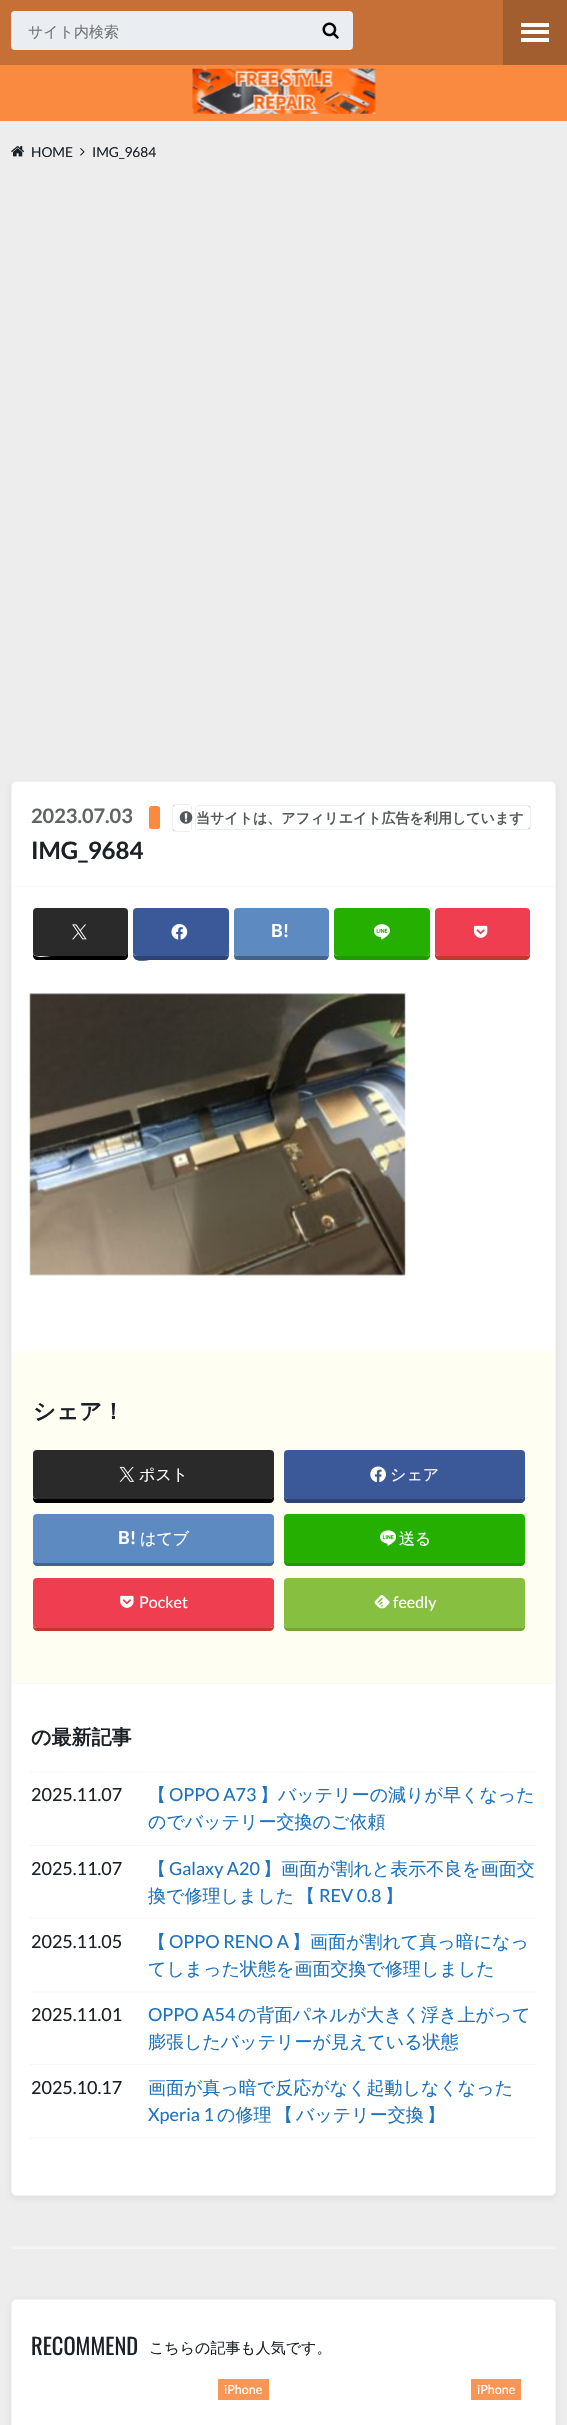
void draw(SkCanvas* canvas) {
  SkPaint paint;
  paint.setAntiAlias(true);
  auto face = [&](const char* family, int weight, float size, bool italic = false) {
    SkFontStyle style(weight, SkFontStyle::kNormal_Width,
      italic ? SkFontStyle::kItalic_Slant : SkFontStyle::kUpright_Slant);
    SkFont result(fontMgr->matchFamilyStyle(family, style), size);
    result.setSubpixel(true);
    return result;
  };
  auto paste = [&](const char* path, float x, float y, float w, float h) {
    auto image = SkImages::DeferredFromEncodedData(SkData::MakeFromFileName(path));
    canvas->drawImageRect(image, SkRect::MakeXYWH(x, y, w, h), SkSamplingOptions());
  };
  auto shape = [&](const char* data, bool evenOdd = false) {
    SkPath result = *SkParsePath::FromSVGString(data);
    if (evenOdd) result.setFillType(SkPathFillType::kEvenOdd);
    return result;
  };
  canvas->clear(0xffededed);
  {
    const struct { float x, y, w, h; SkColor color; } items[] = {
      {0, 0, 503, 65, 0xffc67037},
      {503, 0, 64, 65, 0xffa35e30},
      {521, 23, 28, 4, 0xffffffff},
      {521, 30, 28, 4, 0xffffffff},
      {521, 38, 28, 4, 0xffffffff},
      {0, 65, 567, 56, 0xfff98a40},
    };
    for (auto [x, y, w, h, color] : items) {
      paint.setColor(color);
      canvas->drawRect(SkRect::MakeXYWH(x, y, w, h), paint);
    }
  }
  paint.setColor(0xffeaedf2);
  canvas->drawRoundRect(SkRect::MakeXYWH(11, 11, 342, 39), 4, 4, paint);
  paste("img/1.png", 322, 22, 17, 17);
  paste("img/2.png", 192, 68, 184, 46);
  paste("img/3.png", 11, 146, 14, 11);
  paste("img/4.png", 80, 148, 5, 8);
  paint.setColor(0x268a8a8a);
  paint.setMaskFilter(SkMaskFilter::MakeBlur(kNormal_SkBlurStyle, 3));
  canvas->drawRoundRect(SkRect::MakeXYWH(11, 784, 545, 1415), 5, 5, paint);
  paint.setMaskFilter(nullptr);
  paint.setColor(0xffffffff);
  canvas->drawRoundRect(SkRect::MakeXYWH(11.5f, 781.5f, 544, 1414), 4.5f, 4.5f, paint);
  paint.setStroke(true);
  paint.setStrokeWidth(1);
  paint.setColor(0xfff3f3f3);
  canvas->drawRoundRect(SkRect::MakeXYWH(11.5f, 781.5f, 544, 1414), 4.5f, 4.5f, paint);
  paint.setStroke(false);
  paint.setColor(0xfff8f9fa);
  canvas->drawRect(SkRect::MakeXYWH(13, 886, 542, 1), paint);
  paint.setColor(0xfff98a40);
  canvas->drawRoundRect(SkRect::MakeXYWH(149, 806, 11, 23), 2.5f, 2.5f, paint);
  canvas->save();
  canvas->clipPath(shape("M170 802H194V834H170ZM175.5 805H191V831H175.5C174 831 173 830 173 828.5V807.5C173 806 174 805 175.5 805Z", true), true);
  paint.setColor(0xff55595c);
  paint.setMaskFilter(SkMaskFilter::MakeBlur(kNormal_SkBlurStyle, 0.5f));
  canvas->drawRoundRect(SkRect::MakeXYWH(173, 805, 18, 26), 2.5f, 2.5f, paint);
  paint.setMaskFilter(nullptr);
  canvas->restore();
  canvas->save();
  canvas->clipPath(shape("M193 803H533V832H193ZM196 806H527.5C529 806 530 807 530 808.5V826.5C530 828 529 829 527.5 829H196Z", true), true);
  paint.setMaskFilter(SkMaskFilter::MakeBlur(kNormal_SkBlurStyle, 0.5f));
  canvas->drawRoundRect(SkRect::MakeXYWH(196, 806, 334, 23), 2.5f, 2.5f, paint);
  paint.setMaskFilter(nullptr);
  canvas->restore();
  paste("img/5.png", 179, 811, 14, 13);
  paint.setColor(0xff000000);
  canvas->drawPath(shape("M33 954V956C33 958 35 960 37 960H124C126 960 128 958 128 956V915V913L127 953L126 955L125 956H51C49 956 36 959 33 954Z"), paint);
  paint.setColor(0xff2a2a2a);
  canvas->drawRoundRect(SkRect::MakeXYWH(33, 908, 95, 48), 4, 4, paint);
  paste("img/6.png", 72, 924, 15, 16);
  paint.setColor(0xff2c4373);
  canvas->drawPath(shape("M133 954C133 964 145 960 152 960H225C230 960 229 952 229 949V914V952C229 955 227 956 225 956H136C135 956 134 955 133 954Z"), paint);
  paint.setColor(0xff3b5998);
  canvas->drawRoundRect(SkRect::MakeXYWH(133, 908, 96, 48), 4, 4, paint);
  paste("img/7.png", 171, 924, 17, 16);
  paint.setColor(0xff43638b);
  canvas->drawPath(shape("M234 954C234 957 234 960 238 960H325C330 960 329 952 329 949V914V952C329 955 327 956 325 956H238C236 956 235 955 234 954Z"), paint);
  paint.setColor(0xff5d8ac1);
  canvas->drawRoundRect(SkRect::MakeXYWH(234, 908, 95, 48), 4, 4, paint);
  paint.setColor(0xff219900);
  canvas->drawPath(shape("M334 954V956C334 958 336 960 338 960H426C428 960 430 958 430 956V952C430 955 428 956 426 956H338C336 956 335 955 334 954Z"), paint);
  paint.setColor(0xff25af00);
  canvas->drawRoundRect(SkRect::MakeXYWH(334, 908, 96, 48), 4, 4, paint);
  paste("img/8.png", 374, 924, 16, 16);
  paint.setColor(0xffc0392b);
  canvas->drawPath(shape("M435 952V956C435 958 437 960 439 960H526C528 960 530 958 530 956V952C530 955 528 956 526 956H439C437 956 435 955 435 952Z"), paint);
  paint.setColor(0xfff03e51);
  canvas->drawRoundRect(SkRect::MakeXYWH(435, 908, 95, 48), 4, 4, paint);
  paste("img/9.png", 473, 925, 15, 13);
  paste("img/10.png", 29, 993, 377, 283);
  paint.setColor(0xfffffef2);
  canvas->drawRect(SkRect::MakeXYWH(13, 1351, 542, 332), paint);
  paint.setColor(0xff000000);
  canvas->drawPath(shape("M33 1497V1499C33 1501 35 1503 37 1503H270C272 1503 274 1501 274 1499V1457V1495C274 1497 272 1499 270 1499H36C35 1499 34 1498 33 1497Z"), paint);
  paint.setColor(0xff2a2a2a);
  canvas->drawRoundRect(SkRect::MakeXYWH(33, 1450, 241, 49), 4, 4, paint);
  paste("img/11.png", 119, 1466, 15, 16);
  paint.setColor(0xff2c4373);
  canvas->drawPath(shape("M284 1496V1499C284 1501 286 1503 288 1503H521C523 1503 525 1501 525 1499V1495C525 1497 523 1499 521 1499H288C286 1499 285 1498 284 1496Z"), paint);
  paint.setColor(0xff3b5998);
  canvas->drawRoundRect(SkRect::MakeXYWH(284, 1450, 241, 49), 4, 4, paint);
  paste("img/12.png", 370, 1466, 16, 17);
  paint.setColor(0xff43638b);
  canvas->drawPath(shape("M33 1561V1562C33 1564 35 1566 37 1566H270C272 1566 274 1564 274 1562V1521V1559C274 1561 272 1562 270 1562H36C35 1562 34 1562 33 1561Z"), paint);
  paint.setColor(0xff5d8ac1);
  canvas->drawRoundRect(SkRect::MakeXYWH(33, 1514, 241, 49), 4, 4, paint);
  paint.setColor(0xff219900);
  canvas->drawPath(shape("M284 1560V1562C284 1564 286 1566 288 1566H521C523 1566 525 1564 525 1562V1559C525 1561 523 1562 521 1562H288C286 1562 285 1562 284 1560Z"), paint);
  paint.setColor(0xff25af00);
  canvas->drawRoundRect(SkRect::MakeXYWH(284, 1514, 241, 49), 4, 4, paint);
  paste("img/13.png", 380, 1530, 16, 16);
  paint.setColor(0xffc0392b);
  canvas->drawPath(shape("M33 1626V1627C33 1629 35 1631 37 1631H270C272 1631 274 1629 274 1627V1584V1624C274 1626 272 1628 270 1628H36C35 1628 34 1627 33 1626Z"), paint);
  paint.setColor(0xfff03e51);
  canvas->drawRoundRect(SkRect::MakeXYWH(33, 1578, 241, 50), 4, 4, paint);
  paste("img/14.png", 120, 1595, 14, 13);
  paint.setColor(0xff74a436);
  canvas->drawPath(shape("M284 1625V1627C284 1629 286 1631 288 1631H521C523 1631 525 1629 525 1627V1624C525 1626 523 1628 521 1628H288C286 1628 285 1627 284 1625Z"), paint);
  paint.setColor(0xff87c040);
  canvas->drawRoundRect(SkRect::MakeXYWH(284, 1578, 241, 50), 4, 4, paint);
  paste("img/15.png", 374, 1595, 16, 14);
  paint.setColor(0xfff8f9fa);
  canvas->drawRect(SkRect::MakeXYWH(13, 1683, 542, 1), paint);
  paint.setStroke(true);
  paint.setStrokeWidth(1.2f);
  paint.setColor(0xffeeeeee);
  paint.setPathEffect(SkDashPathEffect::Make({{1.25f, 1.25f}}, 0));
  canvas->drawPath(shape("M30 1772H537.5"), paint);
  paint.setPathEffect(nullptr);
  paint.setPathEffect(SkDashPathEffect::Make({{1.25f, 1.25f}}, 0));
  canvas->drawPath(shape("M30 1845.5H537.5"), paint);
  paint.setPathEffect(nullptr);
  paint.setPathEffect(SkDashPathEffect::Make({{1.25f, 1.25f}}, 0));
  canvas->drawPath(shape("M30 1918H537.5"), paint);
  paint.setPathEffect(nullptr);
  paint.setPathEffect(SkDashPathEffect::Make({{1.25f, 1.25f}}, 0));
  canvas->drawPath(shape("M30 1992H537.5"), paint);
  paint.setPathEffect(nullptr);
  paint.setPathEffect(SkDashPathEffect::Make({{1.25f, 1.25f}}, 0));
  canvas->drawPath(shape("M30 2064.5H537.5"), paint);
  paint.setPathEffect(nullptr);
  paint.setPathEffect(SkDashPathEffect::Make({{1.25f, 1.25f}}, 0));
  canvas->drawPath(shape("M30 2138H537.5"), paint);
  paint.setPathEffect(nullptr);
  paint.setStroke(false);
  paint.setColor(0xfff3f3f3);
  canvas->drawRoundRect(SkRect::MakeXYWH(11, 2246, 545, 3), 1.5f, 1.5f, paint);
  paint.setColor(0x268a8a8a);
  paint.setMaskFilter(SkMaskFilter::MakeBlur(kNormal_SkBlurStyle, 3));
  canvas->drawRoundRect(SkRect::MakeXYWH(11, 2301, 545, 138), 5, 5, paint);
  paint.setMaskFilter(nullptr);
  paint.setColor(0xffffffff);
  canvas->drawRoundRect(SkRect::MakeXYWH(11.5f, 2299.5f, 544, 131), 4.5f, 4.5f, paint);
  paint.setStroke(true);
  paint.setStrokeWidth(1);
  paint.setColor(0xfff3f3f3);
  canvas->drawRoundRect(SkRect::MakeXYWH(11.5f, 2299.5f, 544, 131), 4.5f, 4.5f, paint);
  paint.setStroke(false);
  paint.setColor(0xfffa9653);
  canvas->drawRect(SkRect::MakeXYWH(218, 2379, 51, 21), paint);
  canvas->drawRect(SkRect::MakeXYWH(471, 2379, 50, 21), paint);
  auto f0 = face("WenQuanYi Zen Hei", 500, 15);
  paint.setColor(0xff757575);
  canvas->drawString("サイト内検索", 28, 37, f0, paint);
  auto f1 = face("Lato", 400, 13.75f);
  paint.setColor(0xff1c2126);
  canvas->drawString("HOME", 31, 157, f1, paint);
  canvas->drawString("IMG_9684", 92, 157, f1, paint);
  auto f2 = face("Lato", 700, 20);
  paint.setColor(0xff606467);
  canvas->drawString("2023.07.03", 31, 823, f2, paint);
  auto f3 = face("WenQuanYi Zen Hei", 700, 14);
  paint.setColor(0xff55595c);
  canvas->drawString("当サイトは、アフィリエイト広告を利用しています", 196, 823, f3, paint);
  auto f4 = face("Lato", 700, 24);
  paint.setColor(0xff1c2126);
  canvas->drawString("IMG_9684", 31, 859, f4, paint);
  auto f5 = face("Lato", 700, 18);
  paint.setColor(0xffffffff);
  canvas->drawString("B!", 271, 937, f5, paint);
  auto f6 = face("WenQuanYi Zen Hei", 700, 22.5f);
  paint.setColor(0xff1c2126);
  canvas->drawString("シェア！", 33, 1419, f6, paint);
  auto f7 = face("WenQuanYi Zen Hei", 500, 16);
  paint.setColor(0xffffffff);
  canvas->drawString("ポスト", 139, 1480, f7, paint);
  canvas->drawString("シェア", 390, 1480, f7, paint);
  canvas->drawString("B!", 118, 1544, f5, paint);
  canvas->drawString("はてブ", 140, 1544, f7, paint);
  canvas->drawString("送る", 399, 1544, f7, paint);
  auto f8 = face("Lato", 400, 16);
  canvas->drawString("Pocket", 139, 1608, f8, paint);
  canvas->drawString("feedly", 393, 1608, f8, paint);
  auto f9 = face("WenQuanYi Zen Hei", 700, 20);
  paint.setColor(0xff1c2126);
  canvas->drawString("の最新記事", 31, 1744, f9, paint);
  auto f10 = face("Lato", 400, 18);
  canvas->drawString("2025.11.07", 31, 1801, f10, paint);
  auto f11 = face("WenQuanYi Zen Hei", 500, 18);
  paint.setColor(0xff1e73be);
  canvas->drawString("【", 148, 1801, f11, paint);
  canvas->drawString("OPPO A73", 169, 1801, f10, paint);
  canvas->drawString("】バッテリーの減りが早くなった", 260, 1801, f11, paint);
  canvas->drawString("のでバッテリー交換のご依頼", 148, 1828, f11, paint);
  paint.setColor(0xff1c2126);
  canvas->drawString("2025.11.07", 31, 1875, f10, paint);
  paint.setColor(0xff1e73be);
  canvas->drawString("【", 148, 1875, f11, paint);
  canvas->drawString("Galaxy A20", 169, 1875, f10, paint);
  {
    const struct { const char* s; float x, y; } items[] = {
      {"】画面が割れと表示不良を画面交", 263, 1875},
      {"換で修理しました", 148, 1902},
      {"【", 297, 1902},
    };
    for (auto [s, x, y] : items) {
      canvas->drawString(s, x, y, f11, paint);
    }
  }
  canvas->drawString("REV 0.8", 319, 1902, f10, paint);
  canvas->drawString("】", 385, 1902, f11, paint);
  paint.setColor(0xff1c2126);
  canvas->drawString("2025.11.05", 31, 1948, f10, paint);
  paint.setColor(0xff1e73be);
  canvas->drawString("【", 148, 1948, f11, paint);
  canvas->drawString("OPPO RENO A", 169, 1948, f10, paint);
  canvas->drawString("】画面が割れて真っ暗になっ", 292, 1948, f11, paint);
  canvas->drawString("てしまった状態を画面交換で修理しました", 148, 1975, f11, paint);
  paint.setColor(0xff1c2126);
  canvas->drawString("2025.11.01", 31, 2021, f10, paint);
  paint.setColor(0xff1e73be);
  canvas->drawString("OPPO A54", 148, 2021, f10, paint);
  canvas->drawString("の背面パネルが大きく浮き上がって", 238, 2021, f11, paint);
  canvas->drawString("膨張したバッテリーが見えている状態", 148, 2048, f11, paint);
  paint.setColor(0xff1c2126);
  canvas->drawString("2025.10.17", 31, 2094, f10, paint);
  paint.setColor(0xff1e73be);
  canvas->drawString("画面が真っ暗で反応がなく起動しなくなった", 148, 2094, f11, paint);
  canvas->drawString("Xperia 1", 148, 2121, f10, paint);
  {
    const struct { const char* s; float x, y; } items[] = {
      {"の修理", 217, 2121},
      {"【", 275, 2121},
      {"バッテリー交換", 296, 2121},
      {"】", 427, 2121},
    };
    for (auto [s, x, y] : items) {
      canvas->drawString(s, x, y, f11, paint);
    }
  }
  auto f12 = face("Oswald", 400, 22.5f);
  paint.setColor(0xff1c2126);
  canvas->drawString("RECOMMEND", 31, 2355, f12, paint);
  canvas->drawString("こちらの記事も人気です。", 149, 2353, f0, paint);
  auto f13 = face("Lato", 400, 12.5f);
  paint.setColor(0xffffffff);
  canvas->drawString("iPhone", 224, 2394, f13, paint);
  canvas->drawString("iPhone", 477, 2394, f13, paint);
}
